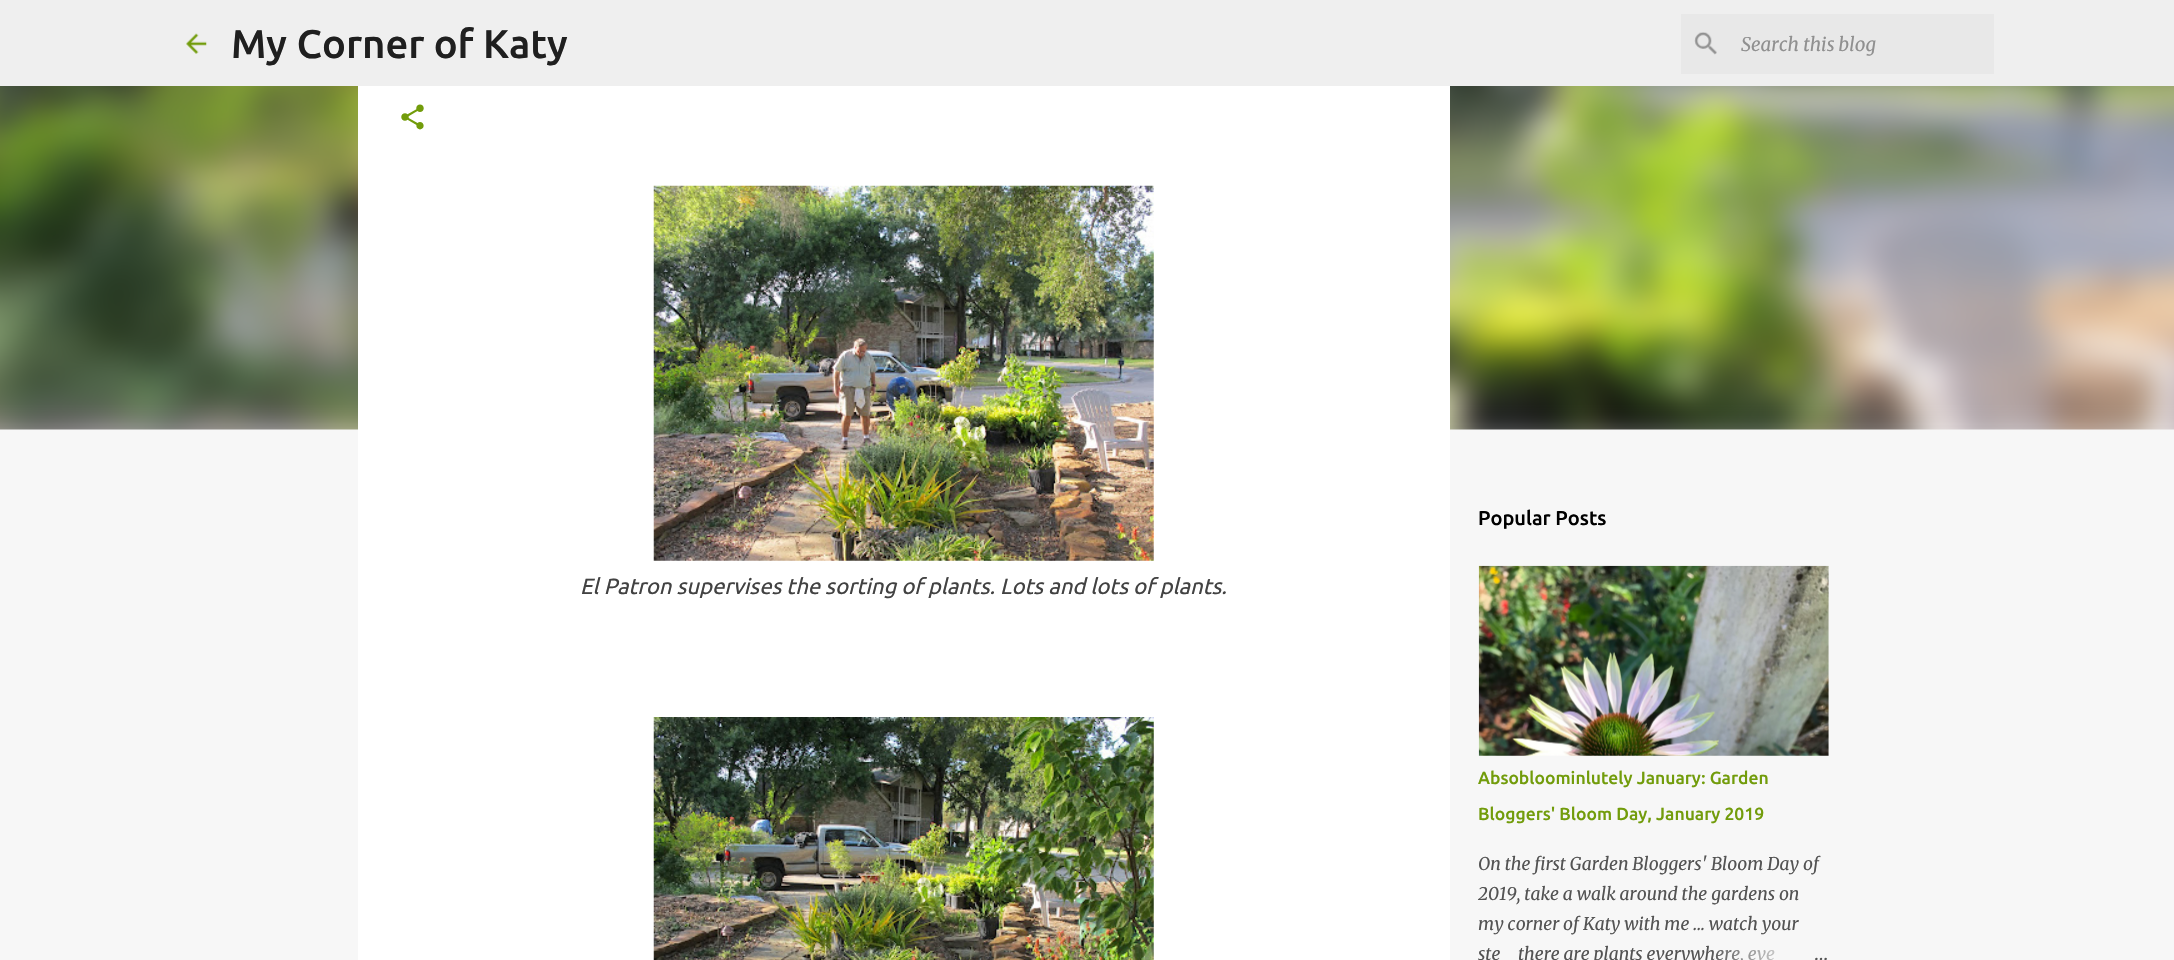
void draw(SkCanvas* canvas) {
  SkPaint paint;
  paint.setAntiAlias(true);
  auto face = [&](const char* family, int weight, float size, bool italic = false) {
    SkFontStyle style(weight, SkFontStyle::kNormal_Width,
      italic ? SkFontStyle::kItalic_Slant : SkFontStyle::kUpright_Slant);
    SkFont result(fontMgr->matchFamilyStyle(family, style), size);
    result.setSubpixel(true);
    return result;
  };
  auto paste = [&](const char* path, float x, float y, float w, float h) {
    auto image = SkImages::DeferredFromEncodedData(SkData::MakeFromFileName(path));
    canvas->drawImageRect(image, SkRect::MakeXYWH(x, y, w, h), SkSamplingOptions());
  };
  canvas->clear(0xfff7f7f7);
  paint.setColor(0xffefefef);
  canvas->drawRect(SkRect::MakeXYWH(0, 0, 2174, 86), paint);
  paste("img/1.png", 186, 33, 21, 21);
  paint.setColor(0xffe8e8e8);
  canvas->drawRect(SkRect::MakeXYWH(1681, 14, 313, 60), paint);
  paste("img/2.png", 1694, 32, 23, 23);
  paste("img/7.png", 0, 86, 2174, 344);
  paint.setColor(0xffffffff);
  canvas->drawRect(SkRect::MakeXYWH(358, 86, 1092, 874), paint);
  paste("img/3.png", 401, 104, 23, 26);
  paste("img/4.png", 653, 185, 501, 376);
  paste("img/5.png", 653, 717, 501, 243);
  paste("img/6.png", 1478, 565, 351, 191);
  auto f0 = face("Ubuntu", 500, 40);
  paint.setColor(0xff1f1f1f);
  canvas->drawString("My Corner of Katy", 231, 58, f0, paint);
  auto f1 = face("Merriweather", 400, 18.75f, true);
  paint.setColor(0xff909090);
  canvas->drawString("Search this blog", 1741, 51, f1, paint);
  auto f2 = face("Ubuntu", 400, 22, true);
  paint.setColor(0xff424242);
  canvas->drawString("El Patron supervises the sorting of plants. Lots and lots of plants.", 580, 594, f2, paint);
  auto f3 = face("Ubuntu", 500, 20);
  paint.setColor(0xff000000);
  canvas->drawString("Popular Posts", 1478, 525, f3, paint);
  auto f4 = face("Ubuntu", 500, 17.5f);
  paint.setColor(0xff729c0b);
  canvas->drawString("Absobloominlutely January: Garden", 1478, 784, f4, paint);
  canvas->drawString("Bloggers' Bloom Day, January 2019", 1478, 820, f4, paint);
  auto f5 = face("Merriweather", 400, 17.5f, true);
  paint.setColor(0xff535353);
  {
    const struct { const char* s; float x, y; } items[] = {
      {"On the first Garden Bloggers' Bloom Day of", 1478, 870},
      {"2019, take a walk around the gardens on", 1478, 900},
      {"my corner of Katy with me ... watch your", 1478, 930},
      {"ste", 1478, 960},
      {"there are plants everywhere, eve", 1518, 960},
    };
    for (auto [s, x, y] : items) {
      canvas->drawString(s, x, y, f5, paint);
    }
  }
  {
    const SkColor colors[] = {0xfff7f7f7, 0xfff7f7f7, 0x00f7f7f7};
    const float stops[] = {0, 0.2f, 1};
    const SkPoint ends[] = {{1829, 954}, {1709, 954}};
    paint.setShader(SkGradientShader::MakeLinear(ends, colors, stops, 3, SkTileMode::kClamp));
    paint.setAlpha(255);
  }
  canvas->drawRect(SkRect::MakeXYWH(1711, 950, 64, 10), paint);
  auto f6 = face("Merriweather", 300, 17.5f);
  paint.setShader(nullptr);
  paint.setColor(0xff535353);
  canvas->drawString("…", 1814, 960, f6, paint);
}
